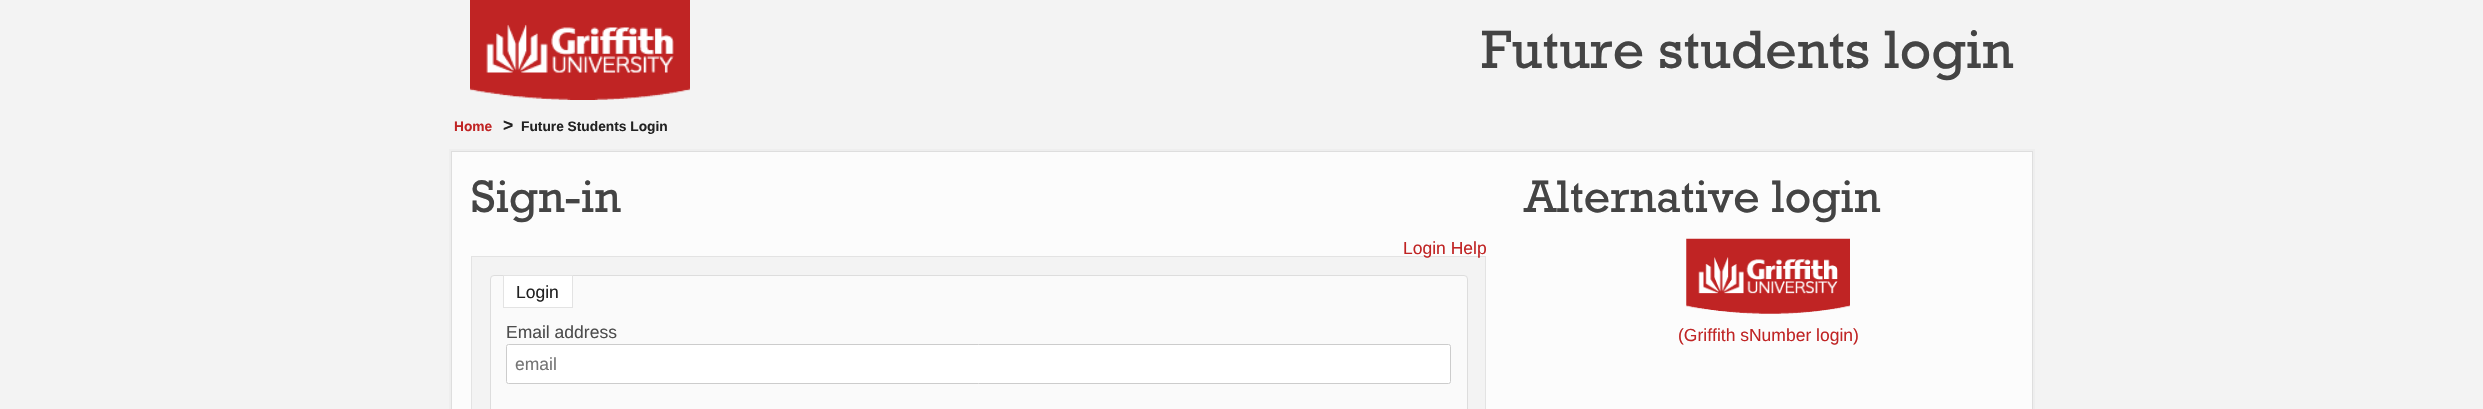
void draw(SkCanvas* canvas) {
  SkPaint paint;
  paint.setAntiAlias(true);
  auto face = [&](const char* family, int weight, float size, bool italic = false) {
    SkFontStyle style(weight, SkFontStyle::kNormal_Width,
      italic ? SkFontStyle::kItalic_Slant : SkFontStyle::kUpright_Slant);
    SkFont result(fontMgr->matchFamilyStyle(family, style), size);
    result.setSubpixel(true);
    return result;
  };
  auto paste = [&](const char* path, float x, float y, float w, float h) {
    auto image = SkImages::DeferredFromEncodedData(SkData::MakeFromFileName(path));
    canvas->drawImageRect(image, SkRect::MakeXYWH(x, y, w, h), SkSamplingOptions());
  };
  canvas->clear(0xfff3f3f3);
  paste("img/1.png", 470, 0, 220, 100);
  paint.setStroke(true);
  paint.setStrokeWidth(3);
  paint.setColor(0xffeeeeee);
  canvas->drawRect(SkRect::MakeXYWH(450.5f, 150.5f, 1583, 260), paint);
  paint.setStroke(false);
  paint.setColor(0xfffcfcfc);
  canvas->drawRect(SkRect::MakeXYWH(451.5f, 151.5f, 1581, 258), paint);
  paint.setStroke(true);
  paint.setStrokeWidth(1);
  paint.setColor(0xffdedede);
  canvas->drawRect(SkRect::MakeXYWH(451.5f, 151.5f, 1581, 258), paint);
  paint.setStroke(false);
  paint.setColor(0xfff3f3f3);
  canvas->drawRect(SkRect::MakeXYWH(471.5f, 256.5f, 1014, 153), paint);
  paint.setStroke(true);
  paint.setColor(0xffe3e3e3);
  canvas->drawRect(SkRect::MakeXYWH(471.5f, 256.5f, 1014, 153), paint);
  paint.setStroke(false);
  paint.setColor(0xfffafafa);
  canvas->drawRoundRect(SkRect::MakeXYWH(490.5f, 275.5f, 977, 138), 3.5f, 3.5f, paint);
  paint.setStroke(true);
  paint.setColor(0xffdddddd);
  canvas->drawRoundRect(SkRect::MakeXYWH(490.5f, 275.5f, 977, 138), 3.5f, 3.5f, paint);
  paint.setStroke(false);
  paint.setColor(0xffffffff);
  canvas->drawRect(SkRect::MakeXYWH(503.5f, 275.5f, 69, 32), paint);
  paint.setStroke(true);
  paint.setColor(0xffe3e3e3);
  canvas->drawRect(SkRect::MakeXYWH(503.5f, 275.5f, 69, 32), paint);
  paint.setStroke(false);
  paint.setColor(0xffffffff);
  canvas->drawRoundRect(SkRect::MakeXYWH(506.5f, 344.5f, 944, 39), 2, 2, paint);
  paint.setStroke(true);
  paint.setColor(0xffcccccc);
  canvas->drawRoundRect(SkRect::MakeXYWH(506.5f, 344.5f, 944, 39), 2, 2, paint);
  paste("img/2.png", 1686, 238, 164, 76);
  auto f0 = face("Rockwell", 400, 55);
  paint.setStroke(false);
  paint.setColor(0xff444444);
  canvas->drawString("Future students login", 1481, 68, f0, paint);
  auto f1 = face("Liberation Sans", 700, 13.75f);
  paint.setColor(0xffc02424);
  canvas->drawString("Home", 454, 131, f1, paint);
  auto f2 = face("Liberation Sans", 700, 17.5f);
  paint.setColor(0xff222222);
  canvas->drawString(">", 503, 131, f2, paint);
  canvas->drawString("Future Students Login", 521, 131, f1, paint);
  auto f3 = face("Rockwell", 400, 46.25f);
  paint.setColor(0xff444444);
  canvas->drawString("Sign-in", 471, 212, f3, paint);
  auto f4 = face("Liberation Sans", 400, 17.5f);
  paint.setColor(0xffc02424);
  canvas->drawString("Login Help", 1403, 254, f4, paint);
  paint.setColor(0xff222222);
  canvas->drawString("Login", 516, 298, f4, paint);
  paint.setColor(0xff4d4d4d);
  canvas->drawString("Email address", 506, 338, f4, paint);
  paint.setColor(0xff757575);
  canvas->drawString("email", 515, 370, f4, paint);
  paint.setColor(0xff444444);
  canvas->drawString("Alternative login", 1524, 212, f3, paint);
  paint.setColor(0xffc02424);
  canvas->drawString("(Griffith sNumber login)", 1678, 341, f4, paint);
}
